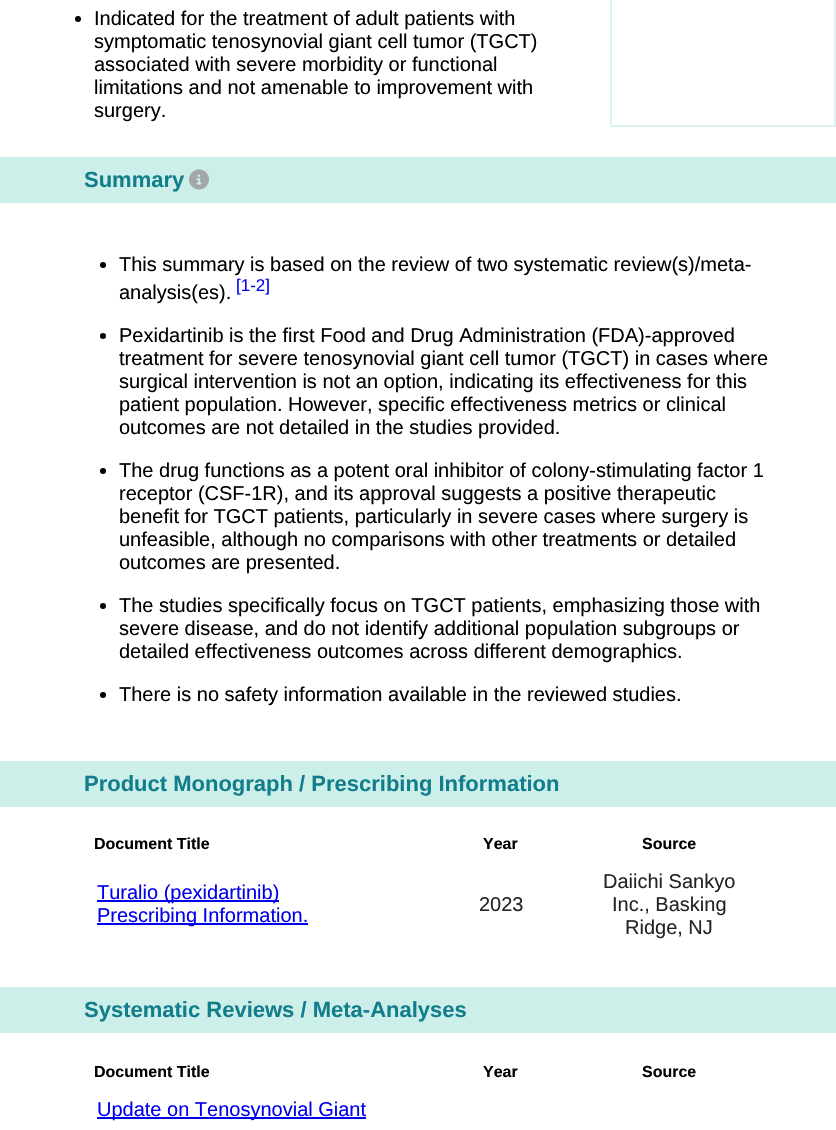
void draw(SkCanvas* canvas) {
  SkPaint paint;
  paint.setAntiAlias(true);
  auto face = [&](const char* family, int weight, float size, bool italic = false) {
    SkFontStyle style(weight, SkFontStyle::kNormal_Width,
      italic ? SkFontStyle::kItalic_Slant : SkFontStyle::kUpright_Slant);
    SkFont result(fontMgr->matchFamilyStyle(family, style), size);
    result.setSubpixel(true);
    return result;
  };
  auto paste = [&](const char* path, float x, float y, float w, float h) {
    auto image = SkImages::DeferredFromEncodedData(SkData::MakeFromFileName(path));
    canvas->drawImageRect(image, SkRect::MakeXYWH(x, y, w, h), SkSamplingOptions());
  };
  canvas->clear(0xffffffff);
  paint.setColor(0xff000000);
  canvas->drawCircle(78, 19, 3, paint);
  paint.setStroke(true);
  paint.setStrokeWidth(2);
  paint.setColor(0xffdbf4f0);
  canvas->drawRect(SkRect::MakeXYWH(611, -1, 224, 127), paint);
  paint.setStroke(false);
  paint.setColor(0xffcdefea);
  canvas->drawRect(SkRect::MakeXYWH(0, 157, 836, 46), paint);
  paste("img/1.png", 189, 169, 20, 21);
  paint.setColor(0xff000000);
  canvas->drawCircle(103, 265, 3, paint);
  canvas->drawCircle(103, 336, 3, paint);
  canvas->drawCircle(103, 471, 3, paint);
  canvas->drawCircle(103, 606, 3, paint);
  canvas->drawCircle(103, 695, 3, paint);
  {
    const struct { float x, y, w, h; SkColor color; } items[] = {
      {0, 761, 836, 46, 0xffcdefea},
      {97, 900, 182, 2, 0xff0000ee},
      {97, 923, 211, 2, 0xff0000ee},
      {0, 987, 836, 46, 0xffcdefea},
      {97, 1117, 269, 2, 0xff0000ee},
    };
    for (auto [x, y, w, h, color] : items) {
      paint.setColor(color);
      canvas->drawRect(SkRect::MakeXYWH(x, y, w, h), paint);
    }
  }
  auto f0 = face("Liberation Sans", 400, 20);
  paint.setColor(0xff000000);
  {
    const struct { const char* s; float x, y; } items[] = {
      {"Indicated for the treatment of adult patients with", 94, 25},
      {"symptomatic tenosynovial giant cell tumor (TGCT)", 94, 48},
      {"associated with severe morbidity or functional", 94, 71},
      {"limitations and not amenable to improvement with", 94, 94},
      {"surgery.", 94, 117},
    };
    for (auto [s, x, y] : items) {
      canvas->drawString(s, x, y, f0, paint);
    }
  }
  auto f1 = face("Liberation Sans", 700, 22);
  paint.setColor(0xff127e8c);
  canvas->drawString("Summary", 84, 187, f1, paint);
  paint.setColor(0xff000000);
  canvas->drawString("This summary is based on the review of two systematic review(s)/meta-", 119, 271, f0, paint);
  canvas->drawString("analysis(es).", 119, 299, f0, paint);
  auto f2 = face("Liberation Sans", 400, 17);
  paint.setColor(0xff0000ee);
  canvas->drawString("[1-2]", 236, 291, f2, paint);
  paint.setColor(0xff000000);
  {
    const struct { const char* s; float x, y; } items[] = {
      {"Pexidartinib is the first Food and Drug Administration (FDA)-approved", 119, 342},
      {"treatment for severe tenosynovial giant cell tumor (TGCT) in cases where", 119, 365},
      {"surgical intervention is not an option, indicating its effectiveness for this", 119, 388},
      {"patient population. However, specific effectiveness metrics or clinical", 119, 411},
      {"outcomes are not detailed in the studies provided.", 119, 434},
      {"The drug functions as a potent oral inhibitor of colony-stimulating factor 1", 119, 477},
      {"receptor (CSF-1R), and its approval suggests a positive therapeutic", 119, 500},
      {"benefit for TGCT patients, particularly in severe cases where surgery is", 119, 523},
      {"unfeasible, although no comparisons with other treatments or detailed", 119, 546},
      {"outcomes are presented.", 119, 569},
      {"The studies specifically focus on TGCT patients, emphasizing those with", 119, 612},
      {"severe disease, and do not identify additional population subgroups or", 119, 635},
      {"detailed effectiveness outcomes across different demographics.", 119, 658},
      {"There is no safety information available in the reviewed studies.", 119, 701},
    };
    for (auto [s, x, y] : items) {
      canvas->drawString(s, x, y, f0, paint);
    }
  }
  paint.setColor(0xff127e8c);
  canvas->drawString("Product Monograph / Prescribing Information", 84, 791, f1, paint);
  auto f3 = face("Liberation Sans", 700, 16);
  paint.setColor(0xff000000);
  {
    const struct { const char* s; float x, y; } items[] = {
      {"Document Title", 94, 849},
      {"Year", 483, 849},
      {"Source", 642, 849},
    };
    for (auto [s, x, y] : items) {
      canvas->drawString(s, x, y, f3, paint);
    }
  }
  paint.setColor(0xff0000ee);
  canvas->drawString("Turalio (pexidartinib)", 97, 899, f0, paint);
  canvas->drawString("Prescribing Information.", 97, 922, f0, paint);
  paint.setColor(0xff242424);
  {
    const struct { const char* s; float x, y; } items[] = {
      {"2023", 479, 911},
      {"Daiichi Sankyo", 603, 888},
      {"Inc., Basking", 612, 911},
      {"Ridge, NJ", 625, 934},
    };
    for (auto [s, x, y] : items) {
      canvas->drawString(s, x, y, f0, paint);
    }
  }
  paint.setColor(0xff127e8c);
  canvas->drawString("Systematic Reviews / Meta-Analyses", 84, 1017, f1, paint);
  paint.setColor(0xff000000);
  {
    const struct { const char* s; float x, y; } items[] = {
      {"Document Title", 94, 1077},
      {"Year", 483, 1077},
      {"Source", 642, 1077},
    };
    for (auto [s, x, y] : items) {
      canvas->drawString(s, x, y, f3, paint);
    }
  }
  paint.setColor(0xff0000ee);
  canvas->drawString("Update on Tenosynovial Giant", 97, 1116, f0, paint);
}
